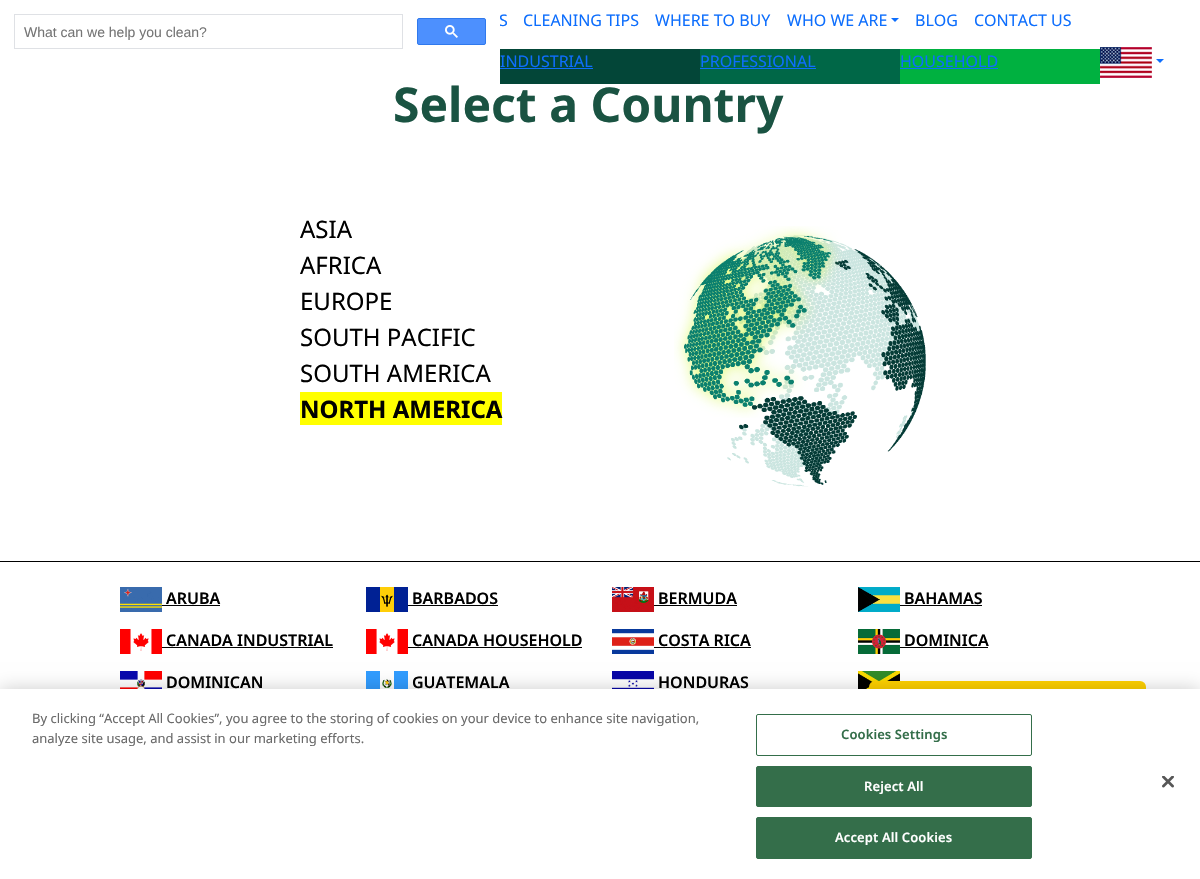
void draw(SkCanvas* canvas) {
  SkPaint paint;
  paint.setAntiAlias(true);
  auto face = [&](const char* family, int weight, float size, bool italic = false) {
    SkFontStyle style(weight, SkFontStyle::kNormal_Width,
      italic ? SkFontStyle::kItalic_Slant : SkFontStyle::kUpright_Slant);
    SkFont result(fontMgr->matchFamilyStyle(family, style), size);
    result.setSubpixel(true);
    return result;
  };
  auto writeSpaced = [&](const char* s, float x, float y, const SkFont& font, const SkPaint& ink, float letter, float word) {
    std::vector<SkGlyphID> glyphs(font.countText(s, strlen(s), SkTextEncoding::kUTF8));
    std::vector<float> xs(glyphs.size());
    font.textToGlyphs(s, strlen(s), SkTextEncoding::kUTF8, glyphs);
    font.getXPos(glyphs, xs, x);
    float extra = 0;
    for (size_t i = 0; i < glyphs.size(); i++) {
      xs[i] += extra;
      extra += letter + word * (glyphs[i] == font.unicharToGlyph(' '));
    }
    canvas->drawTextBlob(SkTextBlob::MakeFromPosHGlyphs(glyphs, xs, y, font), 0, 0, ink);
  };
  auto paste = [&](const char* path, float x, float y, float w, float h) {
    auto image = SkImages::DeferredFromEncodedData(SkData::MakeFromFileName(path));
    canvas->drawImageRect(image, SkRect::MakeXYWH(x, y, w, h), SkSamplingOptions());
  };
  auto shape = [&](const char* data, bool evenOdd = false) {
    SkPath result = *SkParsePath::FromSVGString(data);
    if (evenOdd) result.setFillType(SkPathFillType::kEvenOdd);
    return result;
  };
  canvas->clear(0xffffffff);
  paint.setColor(0xff0d6efd);
  canvas->drawPath(shape("M891 18H899L895 22Z"), paint);
  paint.setStroke(true);
  paint.setStrokeWidth(1);
  paint.setColor(0xffdfe1e5);
  canvas->drawRect(SkRect::MakeXYWH(14.5f, 14.5f, 388, 34), paint);
  paint.setStroke(false);
  paint.setColor(0xff4d90fe);
  canvas->drawRoundRect(SkRect::MakeXYWH(417.5f, 18.5f, 68, 26), 1.5f, 1.5f, paint);
  paint.setStroke(true);
  paint.setColor(0xff3079ed);
  canvas->drawRoundRect(SkRect::MakeXYWH(417.5f, 18.5f, 68, 26), 1.5f, 1.5f, paint);
  paste("img/1.png", 445, 25, 13, 13);
  paint.setStroke(false);
  {
    const struct { float x, y, w, h; SkColor color; } items[] = {
      {500, 49, 200, 35, 0xff034638},
      {500, 68, 93, 1, 0xff0d6efd},
      {700, 49, 200, 35, 0xff006747},
      {700, 68, 116, 1, 0xff0d6efd},
      {900, 49, 200, 35, 0xff00b140},
      {900, 68, 98, 1, 0xff0d6efd},
    };
    for (auto [x, y, w, h, color] : items) {
      paint.setColor(color);
      canvas->drawRect(SkRect::MakeXYWH(x, y, w, h), paint);
    }
  }
  paste("img/2.png", 1100, 47, 52, 31);
  canvas->drawPath(shape("M1156 59H1164L1160 63Z"), paint);
  paint.setColor(0xff000000);
  canvas->drawRect(SkRect::MakeXYWH(0, 561, 1200, 1), paint);
  paint.setColor(0xffffff00);
  canvas->drawRect(SkRect::MakeXYWH(300, 392, 202, 33), paint);
  paste("img/3.png", 674, 226, 252, 261);
  paste("img/4.png", 120, 587, 42, 25);
  paint.setColor(0xff000000);
  canvas->drawRect(SkRect::MakeXYWH(162, 605, 58, 1), paint);
  paste("img/5.png", 366, 587, 42, 25);
  canvas->drawRect(SkRect::MakeXYWH(408, 605, 90, 1), paint);
  paste("img/6.png", 612, 587, 42, 25);
  canvas->drawRect(SkRect::MakeXYWH(654, 605, 83, 1), paint);
  paste("img/7.png", 858, 587, 42, 25);
  canvas->drawRect(SkRect::MakeXYWH(900, 605, 82, 1), paint);
  paste("img/8.png", 120, 629, 42, 25);
  canvas->drawRect(SkRect::MakeXYWH(162, 647, 171, 1), paint);
  paste("img/9.png", 366, 629, 42, 25);
  canvas->drawRect(SkRect::MakeXYWH(408, 647, 174, 1), paint);
  paste("img/10.png", 612, 629, 42, 25);
  canvas->drawRect(SkRect::MakeXYWH(654, 647, 97, 1), paint);
  paste("img/11.png", 858, 629, 42, 25);
  canvas->drawRect(SkRect::MakeXYWH(900, 647, 88, 1), paint);
  paste("img/12.png", 120, 671, 42, 18);
  paste("img/13.png", 366, 671, 42, 18);
  paste("img/14.png", 612, 671, 42, 18);
  paste("img/15.png", 858, 671, 42, 18);
  paint.setColor(0xffffd100);
  canvas->drawRoundRect(SkRect::MakeXYWH(869, 681, 277, 48), 6, 6, paint);
  paint.setColor(0x33000000);
  paint.setMaskFilter(SkMaskFilter::MakeBlur(kNormal_SkBlurStyle, 9));
  canvas->drawRect(SkRect::MakeXYWH(0, 689, 1200, 190), paint);
  paint.setMaskFilter(nullptr);
  paint.setColor(0xffffffff);
  canvas->drawRect(SkRect::MakeXYWH(0, 689, 1200, 190), paint);
  paint.setStroke(true);
  paint.setColor(0xff346e4a);
  canvas->drawRoundRect(SkRect::MakeXYWH(756.5f, 714.5f, 275, 41), 1.5f, 1.5f, paint);
  paint.setStroke(false);
  canvas->drawRoundRect(SkRect::MakeXYWH(756.5f, 766.5f, 275, 40), 1.5f, 1.5f, paint);
  paint.setStroke(true);
  canvas->drawRoundRect(SkRect::MakeXYWH(756.5f, 766.5f, 275, 40), 1.5f, 1.5f, paint);
  paint.setStroke(false);
  canvas->drawRoundRect(SkRect::MakeXYWH(756.5f, 817.5f, 275, 41), 1.5f, 1.5f, paint);
  paint.setStroke(true);
  canvas->drawRoundRect(SkRect::MakeXYWH(756.5f, 817.5f, 275, 41), 1.5f, 1.5f, paint);
  paste("img/16.png", 1162, 776, 12, 12);
  auto f0 = face("Noto Sans", 400, 16);
  paint.setStroke(false);
  paint.setColor(0xff0d6efd);
  {
    const struct { const char* s; float x, y; } items[] = {
      {"S", 499, 26},
      {"CLEANING TIPS", 523, 26},
      {"WHERE TO BUY", 655, 26},
      {"WHO WE ARE", 787, 26},
      {"BLOG", 915, 26},
      {"CONTACT US", 974, 26},
    };
    for (auto [s, x, y] : items) {
      canvas->drawString(s, x, y, f0, paint);
    }
  }
  paint.setColor(0xffffffff);
  canvas->drawRect(SkRect::MakeXYWH(499, 15, 1, 11), paint);
  auto f1 = face("Liberation Sans", 400, 14);
  paint.setColor(0xff757575);
  canvas->drawString("What can we help you clean?", 24, 37, f1, paint);
  paint.setColor(0xff0d6efd);
  {
    const struct { const char* s; float x, y; } items[] = {
      {"INDUSTRIAL", 500, 67},
      {"PROFESSIONAL", 700, 67},
      {"HOUSEHOLD", 900, 67},
    };
    for (auto [s, x, y] : items) {
      canvas->drawString(s, x, y, f0, paint);
    }
  }
  auto f2 = face("Noto Sans", 700, 48);
  paint.setColor(0xff1a5342);
  canvas->drawString("Select a Country", 393, 122, f2, paint);
  auto f3 = face("Noto Sans", 400, 24);
  paint.setColor(0xff000000);
  {
    const struct { const char* s; float x, y; } items[] = {
      {"ASIA", 300, 238},
      {"AFRICA", 300, 274},
      {"EUROPE", 300, 310},
      {"SOUTH PACIFIC", 300, 346},
      {"SOUTH AMERICA", 300, 382},
    };
    for (auto [s, x, y] : items) {
      canvas->drawString(s, x, y, f3, paint);
    }
  }
  auto f4 = face("Noto Sans", 700, 24);
  canvas->drawString("NORTH AMERICA", 300, 418, f4, paint);
  auto f5 = face("Noto Sans", 600, 16);
  {
    const struct { const char* s; float x, y; } items[] = {
      {"ARUBA", 166, 604},
      {"BARBADOS", 412, 604},
      {"BERMUDA", 658, 604},
      {"BAHAMAS", 904, 604},
      {"CANADA INDUSTRIAL", 166, 646},
      {"CANADA HOUSEHOLD", 412, 646},
      {"COSTA RICA", 658, 646},
      {"DOMINICA", 904, 646},
      {"DOMINICAN", 166, 688},
      {"GUATEMALA", 412, 688},
      {"HONDURAS", 658, 688},
    };
    for (auto [s, x, y] : items) {
      canvas->drawString(s, x, y, f5, paint);
    }
  }
  auto f6 = face("Noto Sans", 400, 13);
  paint.setColor(0xff696969);
  canvas->drawString("By clicking “Accept All Cookies”, you agree to the storing of cookies on your device to enhance site navigation,", 32, 723, f6, paint);
  canvas->drawString("analyze site usage, and assist in our marketing efforts.", 32, 743, f6, paint);
  auto f7 = face("Noto Sans", 600, 13);
  paint.setColor(0xff346e4a);
  writeSpaced("Cookies Settings", 841, 739, f7, paint, 0.1f, 0);
  paint.setColor(0xffffffff);
  writeSpaced("Reject All", 864, 791, f7, paint, 0.1f, 0);
  writeSpaced("Accept All Cookies", 835, 842, f7, paint, 0.1f, 0);
}
